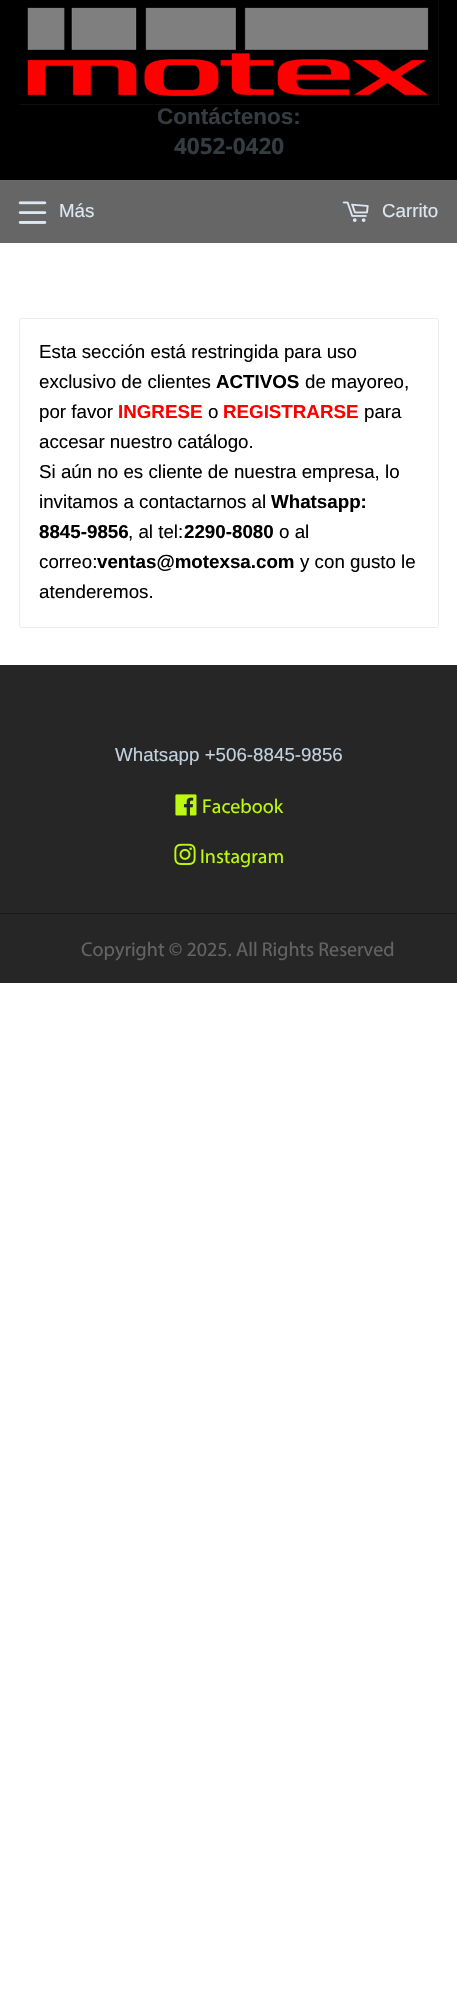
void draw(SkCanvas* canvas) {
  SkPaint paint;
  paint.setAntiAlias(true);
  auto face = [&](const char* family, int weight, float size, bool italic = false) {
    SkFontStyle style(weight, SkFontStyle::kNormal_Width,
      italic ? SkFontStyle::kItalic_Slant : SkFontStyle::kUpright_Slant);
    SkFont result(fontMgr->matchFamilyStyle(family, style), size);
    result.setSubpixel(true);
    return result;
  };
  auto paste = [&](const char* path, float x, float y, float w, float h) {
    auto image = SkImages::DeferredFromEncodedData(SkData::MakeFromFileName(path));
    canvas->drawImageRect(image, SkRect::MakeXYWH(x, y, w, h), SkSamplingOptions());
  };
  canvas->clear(0xffffffff);
  paint.setColor(0xff000000);
  canvas->drawRect(SkRect::MakeXYWH(0, 0, 457, 180), paint);
  paste("img/1.png", 19, 0, 420, 105);
  paint.setColor(0xff666666);
  canvas->drawRect(SkRect::MakeXYWH(0, 180, 457, 63), paint);
  paste("img/2.png", 18, 201, 29, 23);
  paste("img/3.png", 342, 201, 27, 21);
  paint.setStroke(true);
  paint.setStrokeWidth(1);
  paint.setColor(0xffececec);
  canvas->drawRoundRect(SkRect::MakeXYWH(19.5f, 318.5f, 419, 309), 2, 2, paint);
  paint.setStroke(false);
  paint.setColor(0xff262626);
  canvas->drawRect(SkRect::MakeXYWH(0, 665, 457, 318), paint);
  paste("img/4.png", 175, 794, 22, 22);
  paste("img/5.png", 174, 843, 22, 22);
  paint.setColor(0xff191919);
  canvas->drawRect(SkRect::MakeXYWH(0, 913, 457, 1), paint);
  auto f0 = face("Liberation Sans", 700, 22.5f);
  paint.setColor(0xff353c41);
  canvas->drawString("Contáctenos:", 157, 124, f0, paint);
  auto f1 = face("Open Sans", 700, 22.5f);
  canvas->drawString("4052-0420", 174, 154, f1, paint);
  auto f2 = face("Liberation Sans", 400, 18.75f);
  paint.setColor(0xffdee6f1);
  canvas->drawString("Más", 59, 217, f2, paint);
  canvas->drawString("Carrito", 382, 217, f2, paint);
  paint.setColor(0xff000000);
  canvas->drawString("Esta sección está restringida para uso", 39, 358, f2, paint);
  canvas->drawString("exclusivo de clientes", 39, 388, f2, paint);
  auto f3 = face("Liberation Sans", 700, 18.75f);
  canvas->drawString("ACTIVOS", 216, 388, f3, paint);
  canvas->drawString("de mayoreo,", 305, 388, f2, paint);
  canvas->drawString("por favor", 39, 418, f2, paint);
  paint.setColor(0xffff0000);
  canvas->drawString("INGRESE", 118, 418, f3, paint);
  paint.setColor(0xff000000);
  canvas->drawString("o", 208, 418, f2, paint);
  paint.setColor(0xffff0000);
  canvas->drawString("REGISTRARSE", 223, 418, f3, paint);
  paint.setColor(0xff000000);
  {
    const struct { const char* s; float x, y; } items[] = {
      {"para", 364, 418},
      {"accesar nuestro catálogo.", 39, 448},
      {"Si aún no es cliente de nuestra empresa, lo", 39, 478},
      {"invitamos a contactarnos al", 39, 508},
    };
    for (auto [s, x, y] : items) {
      canvas->drawString(s, x, y, f2, paint);
    }
  }
  canvas->drawString("Whatsapp:", 271, 508, f3, paint);
  canvas->drawString("8845-9856", 39, 538, f3, paint);
  canvas->drawString(", al tel:", 128, 538, f2, paint);
  canvas->drawString("2290-8080", 184, 538, f3, paint);
  canvas->drawString("o al", 279, 538, f2, paint);
  canvas->drawString("correo:", 39, 568, f2, paint);
  canvas->drawString("ventas@motexsa.com", 97, 568, f3, paint);
  canvas->drawString("y con gusto le", 300, 568, f2, paint);
  canvas->drawString("atenderemos.", 39, 598, f2, paint);
  paint.setColor(0xffc2d2de);
  canvas->drawString("Whatsapp +506-8845-9856", 115, 761, f2, paint);
  auto f4 = face("Myriad", 400, 20);
  paint.setColor(0xffbdf90e);
  canvas->drawString("Facebook", 202, 813, f4, paint);
  canvas->drawString("Instagram", 200, 863, f4, paint);
  paint.setColor(0xff646464);
  canvas->drawString("Copyright © 2025. All Rights Reserved", 81, 956, f4, paint);
}
